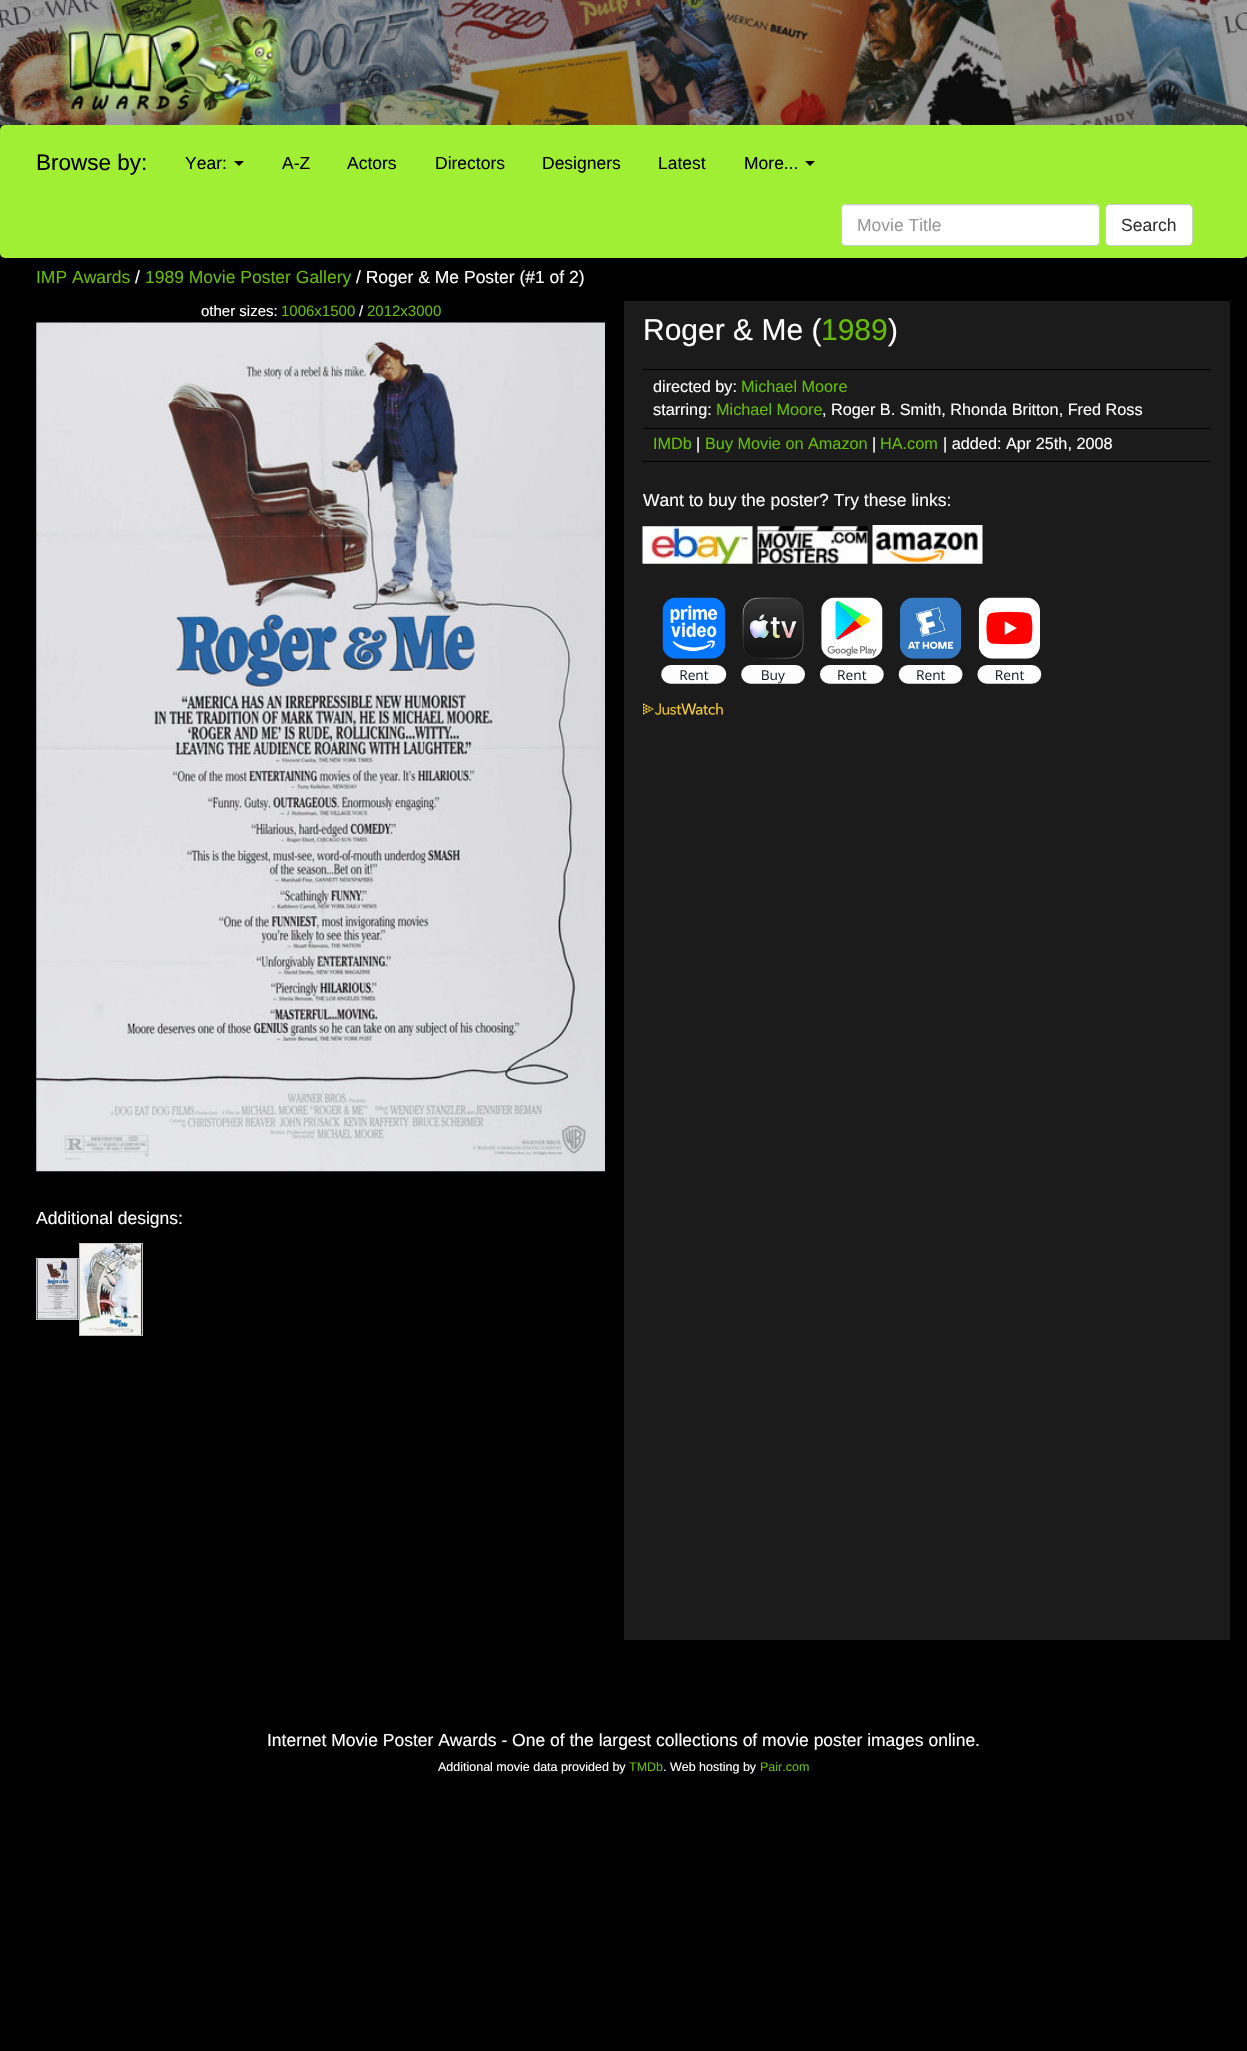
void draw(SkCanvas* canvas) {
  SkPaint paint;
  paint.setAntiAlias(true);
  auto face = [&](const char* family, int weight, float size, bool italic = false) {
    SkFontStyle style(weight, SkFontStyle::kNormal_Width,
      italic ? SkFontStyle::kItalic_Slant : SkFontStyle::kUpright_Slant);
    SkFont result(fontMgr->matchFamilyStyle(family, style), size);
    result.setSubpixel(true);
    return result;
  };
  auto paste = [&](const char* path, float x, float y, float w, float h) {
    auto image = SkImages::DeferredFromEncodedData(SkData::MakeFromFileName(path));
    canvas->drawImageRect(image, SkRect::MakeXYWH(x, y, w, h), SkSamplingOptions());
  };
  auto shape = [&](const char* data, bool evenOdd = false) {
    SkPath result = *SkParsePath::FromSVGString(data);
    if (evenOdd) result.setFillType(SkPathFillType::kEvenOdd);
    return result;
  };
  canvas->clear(0xff000000);
  paste("img/1.png", 0, 0, 1247, 125);
  paste("img/2.png", 55, 3, 235, 119);
  paint.setColor(0xffa1ef34);
  canvas->drawRoundRect(SkRect::MakeXYWH(0, 125, 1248, 133), 5, 5, paint);
  paint.setColor(0xff000000);
  canvas->drawPath(shape("M234 161H244L239 166Z"), paint);
  canvas->drawPath(shape("M805 161H815L810 166Z"), paint);
  paint.setColor(0xffffffff);
  canvas->drawRoundRect(SkRect::MakeXYWH(841, 204, 259, 42), 5, 5, paint);
  paint.setColor(0xffececec);
  canvas->drawPath(shape("M846 206H1096L1098 208L1099 210V209C1099 207 1097 205 1095 205H847C846 205 844 206 844 207Z"), paint);
  paint.setStroke(true);
  paint.setStrokeWidth(1);
  paint.setColor(0xffcccccc);
  canvas->drawRoundRect(SkRect::MakeXYWH(841.5f, 204.5f, 258, 41), 4.5f, 4.5f, paint);
  paint.setStroke(false);
  paint.setColor(0xffffffff);
  canvas->drawRoundRect(SkRect::MakeXYWH(1105.5f, 204.5f, 87, 41), 4.5f, 4.5f, paint);
  paint.setStroke(true);
  paint.setColor(0xffcccccc);
  canvas->drawRoundRect(SkRect::MakeXYWH(1105.5f, 204.5f, 87, 41), 4.5f, 4.5f, paint);
  paste("img/3.png", 36, 322, 569, 850);
  paint.setColor(0xffbcbcbc);
  canvas->drawRect(SkRect::MakeXYWH(79.5f, 1243.5f, 63, 92), paint);
  canvas->drawRect(SkRect::MakeXYWH(36.5f, 1258.5f, 42, 61), paint);
  paste("img/4.png", 80, 1243, 62, 92);
  paste("img/5.png", 37, 1258, 41, 61);
  paint.setStroke(false);
  {
    const struct { float x, y, w, h; SkColor color; } items[] = {
      {624, 301, 606, 1339, 0xff1b1b1b},
      {643, 369, 568, 1, 0xff000000},
      {643, 428, 568, 1, 0xff000000},
      {643, 461, 568, 1, 0xff000000},
    };
    for (auto [x, y, w, h, color] : items) {
      paint.setColor(color);
      canvas->drawRect(SkRect::MakeXYWH(x, y, w, h), paint);
    }
  }
  paste("img/6.png", 642, 526, 111, 38);
  paste("img/7.png", 757, 526, 111, 38);
  paste("img/8.png", 872, 525, 111, 39);
  paste("img/9.png", 661, 597, 381, 87);
  paste("img/10.png", 643, 703, 80, 12);
  auto f0 = face("Liberation Sans", 400, 22.5f);
  canvas->drawString("Browse by:", 36, 170, f0, paint);
  auto f1 = face("Liberation Sans", 400, 17.5f);
  {
    const struct { const char* s; float x, y; } items[] = {
      {"Year:", 185, 169},
      {"A-Z", 282, 169},
      {"Actors", 347, 169},
      {"Directors", 435, 169},
      {"Designers", 542, 169},
      {"Latest", 658, 169},
      {"More...", 744, 169},
    };
    for (auto [s, x, y] : items) {
      canvas->drawString(s, x, y, f1, paint);
    }
  }
  paint.setColor(0xff999999);
  canvas->drawString("Movie Title", 857, 231, f1, paint);
  paint.setColor(0xff333333);
  canvas->drawString("Search", 1121, 231, f1, paint);
  paint.setColor(0xff66bd04);
  canvas->drawString("IMP Awards", 36, 283, f1, paint);
  paint.setColor(0xffffffff);
  canvas->drawString("/", 135, 283, f1, paint);
  paint.setColor(0xff66bd04);
  canvas->drawString("1989 Movie Poster Gallery", 145, 283, f1, paint);
  paint.setColor(0xffffffff);
  canvas->drawString("/ Roger & Me Poster (#1 of 2)", 356, 283, f1, paint);
  auto f2 = face("Liberation Sans", 400, 15);
  canvas->drawString("other sizes:", 201, 316, f2, paint);
  paint.setColor(0xff66bd04);
  canvas->drawString("1006x1500", 281, 316, f2, paint);
  paint.setColor(0xffffffff);
  canvas->drawString("/", 359, 316, f2, paint);
  paint.setColor(0xff66bd04);
  canvas->drawString("2012x3000", 367, 316, f2, paint);
  paint.setColor(0xffffffff);
  canvas->drawString("Additional designs:", 36, 1224, f1, paint);
  auto f3 = face("Liberation Sans", 400, 30);
  canvas->drawString("Roger & Me (", 643, 340, f3, paint);
  paint.setColor(0xff66bd04);
  canvas->drawString("1989", 821, 340, f3, paint);
  paint.setColor(0xffffffff);
  canvas->drawString(")", 888, 340, f3, paint);
  auto f4 = face("Liberation Sans", 400, 16.25f);
  canvas->drawString("directed by:", 653, 392, f4, paint);
  paint.setColor(0xff66bd04);
  canvas->drawString("Michael Moore", 741, 392, f4, paint);
  paint.setColor(0xffffffff);
  canvas->drawString("starring:", 653, 415, f4, paint);
  paint.setColor(0xff66bd04);
  canvas->drawString("Michael Moore", 716, 415, f4, paint);
  paint.setColor(0xffffffff);
  canvas->drawString(", Roger B. Smith, Rhonda Britton, Fred Ross", 822, 415, f4, paint);
  paint.setColor(0xff66bd04);
  canvas->drawString("IMDb", 653, 449, f4, paint);
  paint.setColor(0xffffffff);
  canvas->drawString("|", 696, 449, f4, paint);
  paint.setColor(0xff66bd04);
  canvas->drawString("Buy Movie on Amazon", 705, 449, f4, paint);
  paint.setColor(0xffffffff);
  canvas->drawString("|", 872, 449, f4, paint);
  paint.setColor(0xff66bd04);
  canvas->drawString("HA.com", 880, 449, f4, paint);
  paint.setColor(0xffffffff);
  canvas->drawString("| added: Apr 25th, 2008", 943, 449, f4, paint);
  canvas->drawString("Want to buy the poster? Try these links:", 643, 506, f1, paint);
  canvas->drawString("Internet Movie Poster Awards - One of the largest collections of movie poster images online.", 267, 1746, f1, paint);
  auto f5 = face("Liberation Sans", 400, 12.5f);
  canvas->drawString("Additional movie data provided by", 438, 1771, f5, paint);
  paint.setColor(0xff66bd04);
  canvas->drawString("TMDb", 629, 1771, f5, paint);
  paint.setColor(0xffffffff);
  canvas->drawString(". Web hosting by", 663, 1771, f5, paint);
  paint.setColor(0xff66bd04);
  canvas->drawString("Pair.com", 760, 1771, f5, paint);
}
